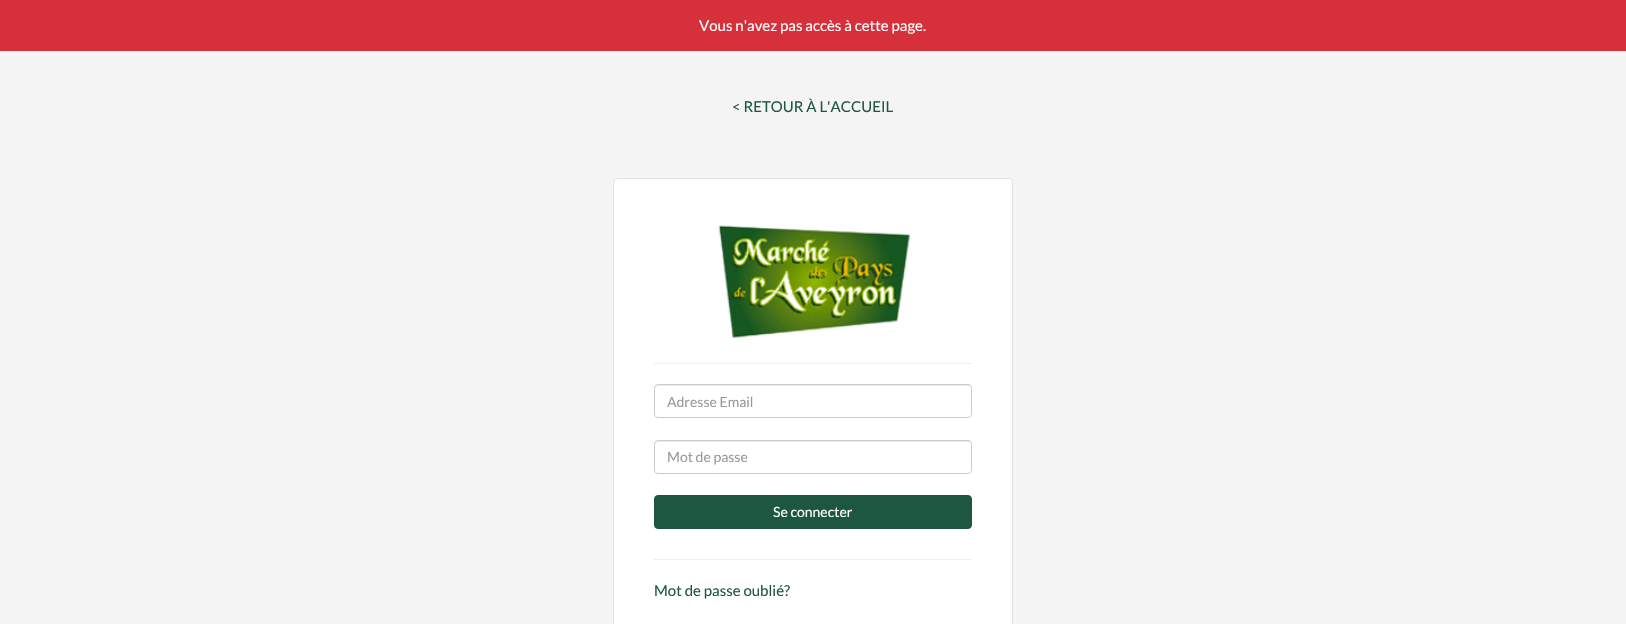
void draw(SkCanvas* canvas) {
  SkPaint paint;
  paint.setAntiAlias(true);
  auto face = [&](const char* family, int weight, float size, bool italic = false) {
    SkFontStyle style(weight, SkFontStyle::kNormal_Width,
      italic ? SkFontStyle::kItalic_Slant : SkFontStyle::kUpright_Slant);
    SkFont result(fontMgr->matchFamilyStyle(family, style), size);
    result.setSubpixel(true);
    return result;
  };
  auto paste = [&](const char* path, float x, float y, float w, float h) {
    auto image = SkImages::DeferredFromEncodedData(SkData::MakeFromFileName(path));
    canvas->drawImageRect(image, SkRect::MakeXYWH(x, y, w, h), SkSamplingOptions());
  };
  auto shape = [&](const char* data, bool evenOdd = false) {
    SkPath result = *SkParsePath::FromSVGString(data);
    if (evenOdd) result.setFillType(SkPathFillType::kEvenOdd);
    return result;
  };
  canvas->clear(0xfff4f4f4);
  paint.setColor(0xffd6313b);
  canvas->drawRect(SkRect::MakeXYWH(0, 0, 1626, 51), paint);
  paint.setColor(0xffffffff);
  canvas->drawRoundRect(SkRect::MakeXYWH(613.5f, 178.5f, 399, 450), 3.5f, 3.5f, paint);
  paint.setStroke(true);
  paint.setStrokeWidth(1);
  paint.setColor(0xffe1e1e1);
  canvas->drawRoundRect(SkRect::MakeXYWH(613.5f, 178.5f, 399, 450), 3.5f, 3.5f, paint);
  paste("img/1.png", 718, 225, 193, 114);
  paint.setStroke(false);
  paint.setColor(0xffeeeeee);
  canvas->drawRect(SkRect::MakeXYWH(654, 363, 318, 1), paint);
  paint.setColor(0xffececec);
  canvas->drawPath(shape("M658 386H968C970 386 971 387 971 389L970 386L969 385H658C656 385 655 387 655 389C655 387 656 386 658 386Z"), paint);
  paint.setStroke(true);
  paint.setColor(0xffcccccc);
  canvas->drawRoundRect(SkRect::MakeXYWH(654.5f, 384.5f, 317, 33), 3.5f, 3.5f, paint);
  paint.setStroke(false);
  paint.setColor(0xffececec);
  canvas->drawPath(shape("M658 442H968C970 442 971 443 971 445L970 442L969 441H658C656 441 655 443 655 445C655 443 656 442 658 442Z"), paint);
  paint.setStroke(true);
  paint.setColor(0xffcccccc);
  canvas->drawRoundRect(SkRect::MakeXYWH(654.5f, 440.5f, 317, 33), 3.5f, 3.5f, paint);
  paint.setStroke(false);
  paint.setColor(0xff1e5740);
  canvas->drawRoundRect(SkRect::MakeXYWH(654.5f, 495.5f, 317, 33), 3.5f, 3.5f, paint);
  paint.setStroke(true);
  canvas->drawRoundRect(SkRect::MakeXYWH(654.5f, 495.5f, 317, 33), 3.5f, 3.5f, paint);
  paint.setStroke(false);
  paint.setColor(0xffeeeeee);
  canvas->drawRect(SkRect::MakeXYWH(654, 559, 318, 1), paint);
  auto f0 = face("Lato", 400, 15);
  paint.setColor(0xffffffff);
  canvas->drawString("Vous n'avez pas accès à cette page.", 699, 31, f0, paint);
  paint.setColor(0xff1e5740);
  canvas->drawString("< RETOUR À L'ACCUEIL", 732, 112, f0, paint);
  auto f1 = face("Lato", 400, 14);
  paint.setColor(0xff999999);
  canvas->drawString("Adresse Email", 667, 407, f1, paint);
  canvas->drawString("Mot de passe", 667, 462, f1, paint);
  paint.setColor(0xffffffff);
  canvas->drawString("Se connecter", 773, 517, f1, paint);
  paint.setColor(0xff1e5740);
  canvas->drawString("Mot de passe oublié?", 654, 596, f0, paint);
}
